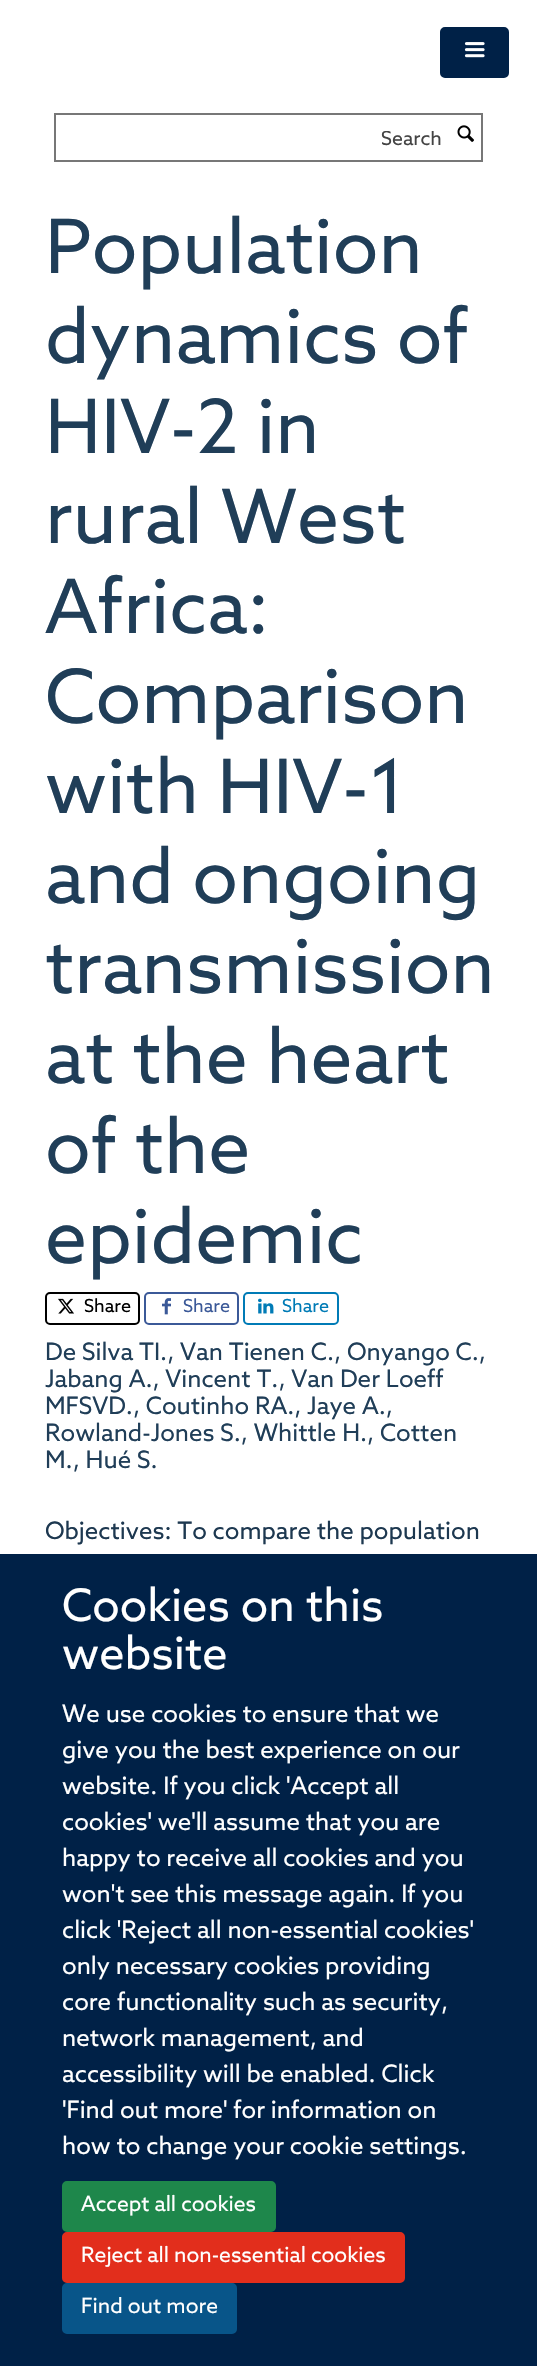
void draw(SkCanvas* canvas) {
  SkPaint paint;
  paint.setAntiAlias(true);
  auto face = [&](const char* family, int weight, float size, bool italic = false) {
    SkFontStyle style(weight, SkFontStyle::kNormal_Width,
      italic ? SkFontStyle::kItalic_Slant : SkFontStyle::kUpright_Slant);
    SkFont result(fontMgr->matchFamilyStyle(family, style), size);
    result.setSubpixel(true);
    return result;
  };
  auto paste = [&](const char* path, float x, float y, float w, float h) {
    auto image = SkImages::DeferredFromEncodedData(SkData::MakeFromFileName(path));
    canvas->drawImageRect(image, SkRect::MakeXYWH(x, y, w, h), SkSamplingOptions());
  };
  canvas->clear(0xffffffff);
  paint.setColor(0xff002147);
  canvas->drawRoundRect(SkRect::MakeXYWH(441, 28, 67, 49), 4, 4, paint);
  paint.setStroke(true);
  paint.setStrokeWidth(2);
  canvas->drawRoundRect(SkRect::MakeXYWH(441, 28, 67, 49), 4, 4, paint);
  paste("img/1.png", 464, 42, 21, 16);
  paint.setColor(0xff777777);
  canvas->drawRect(SkRect::MakeXYWH(55, 114, 427, 47), paint);
  paste("img/2.png", 457, 125, 17, 17);
  paint.setColor(0xff000000);
  canvas->drawRoundRect(SkRect::MakeXYWH(46, 1293, 93, 31), 4, 4, paint);
  paste("img/3.png", 58, 1298, 16, 16);
  paint.setColor(0xff3b5998);
  canvas->drawRoundRect(SkRect::MakeXYWH(145, 1293, 93, 31), 4, 4, paint);
  paste("img/4.png", 162, 1298, 9, 17);
  paint.setColor(0xff007bb6);
  canvas->drawRoundRect(SkRect::MakeXYWH(244, 1293, 94, 31), 4, 4, paint);
  paste("img/5.png", 258, 1298, 16, 16);
  paint.setStroke(false);
  paint.setColor(0xff002147);
  canvas->drawRect(SkRect::MakeXYWH(0, 1554, 537, 812), paint);
  paint.setColor(0xff1e874b);
  canvas->drawRoundRect(SkRect::MakeXYWH(63, 2182, 212, 49), 4, 4, paint);
  paint.setStroke(true);
  canvas->drawRoundRect(SkRect::MakeXYWH(63, 2182, 212, 49), 4, 4, paint);
  paint.setStroke(false);
  paint.setColor(0xffe22e1c);
  canvas->drawRoundRect(SkRect::MakeXYWH(63, 2233, 341, 49), 4, 4, paint);
  paint.setStroke(true);
  canvas->drawRoundRect(SkRect::MakeXYWH(63, 2233, 341, 49), 4, 4, paint);
  paint.setStroke(false);
  paint.setColor(0xff085589);
  canvas->drawRoundRect(SkRect::MakeXYWH(63, 2284, 173, 49), 4, 4, paint);
  paint.setStroke(true);
  canvas->drawRoundRect(SkRect::MakeXYWH(63, 2284, 173, 49), 4, 4, paint);
  canvas->save();
  canvas->clipRect(SkRect::MakeXYWH(65, 131, 376, 19));
  auto f0 = face("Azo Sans", 400, 19.5f);
  paint.setStroke(false);
  paint.setColor(0xff444444);
  canvas->drawString("Search", 381, 145, f0, paint);
  canvas->restore();
  auto f1 = face("Azo Sans", 400, 75);
  paint.setColor(0xff203e58);
  {
    const struct { const char* s; float x, y; } items[] = {
      {"Population", 45, 273},
      {"dynamics of", 45, 363},
      {"HIV-2 in", 45, 453},
      {"rural West", 45, 543},
      {"Africa:", 45, 633},
      {"Comparison", 45, 723},
      {"with HIV-1", 45, 813},
      {"and ongoing", 45, 903},
      {"transmission", 45, 993},
      {"at the heart", 45, 1083},
      {"of the", 45, 1173},
      {"epidemic", 45, 1263},
    };
    for (auto [s, x, y] : items) {
      canvas->drawString(s, x, y, f1, paint);
    }
  }
  auto f2 = face("Azo Sans", 400, 18);
  paint.setColor(0xff000000);
  canvas->drawString("Share", 84, 1312, f2, paint);
  paint.setColor(0xff3b5998);
  canvas->drawString("Share", 183, 1312, f2, paint);
  paint.setColor(0xff007bb6);
  canvas->drawString("Share", 282, 1312, f2, paint);
  auto f3 = face("Azo Sans", 400, 24);
  paint.setColor(0xff203e58);
  {
    const struct { const char* s; float x, y; } items[] = {
      {"De Silva TI., Van Tienen C., Onyango C.,", 45, 1360},
      {"Jabang A., Vincent T., Van Der Loeff", 45, 1387},
      {"MFSVD., Coutinho RA., Jaye A.,", 45, 1414},
      {"Rowland-Jones S., Whittle H., Cotten", 45, 1441},
      {"M., Hué S.", 45, 1468},
    };
    for (auto [s, x, y] : items) {
      canvas->drawString(s, x, y, f3, paint);
    }
  }
  paint.setColor(0xff1d3850);
  canvas->drawString("Objectives: To compare the population", 45, 1539, f3, paint);
  auto f4 = face("Azo Sans", 400, 45);
  paint.setColor(0xffffffff);
  canvas->drawString("Cookies on this", 62, 1621, f4, paint);
  canvas->drawString("website", 62, 1669, f4, paint);
  {
    const struct { const char* s; float x, y; } items[] = {
      {"We use cookies to ensure that we", 62, 1722},
      {"give you the best experience on our", 62, 1758},
      {"website. If you click 'Accept all", 62, 1794},
      {"cookies' we'll assume that you are", 62, 1830},
      {"happy to receive all cookies and you", 62, 1866},
      {"won't see this message again. If you", 62, 1902},
      {"click 'Reject all non-essential cookies'", 62, 1938},
      {"only necessary cookies providing", 62, 1974},
      {"core functionality such as security,", 62, 2010},
      {"network management, and", 62, 2046},
      {"accessibility will be enabled. Click", 62, 2082},
      {"'Find out more' for information on", 62, 2118},
      {"how to change your cookie settings.", 62, 2154},
    };
    for (auto [s, x, y] : items) {
      canvas->drawString(s, x, y, f3, paint);
    }
  }
  auto f5 = face("Azo Sans", 400, 21);
  {
    const struct { const char* s; float x, y; } items[] = {
      {"Accept all cookies", 81, 2211},
      {"Reject all non-essential cookies", 81, 2262},
      {"Find out more", 81, 2313},
    };
    for (auto [s, x, y] : items) {
      canvas->drawString(s, x, y, f5, paint);
    }
  }
}
